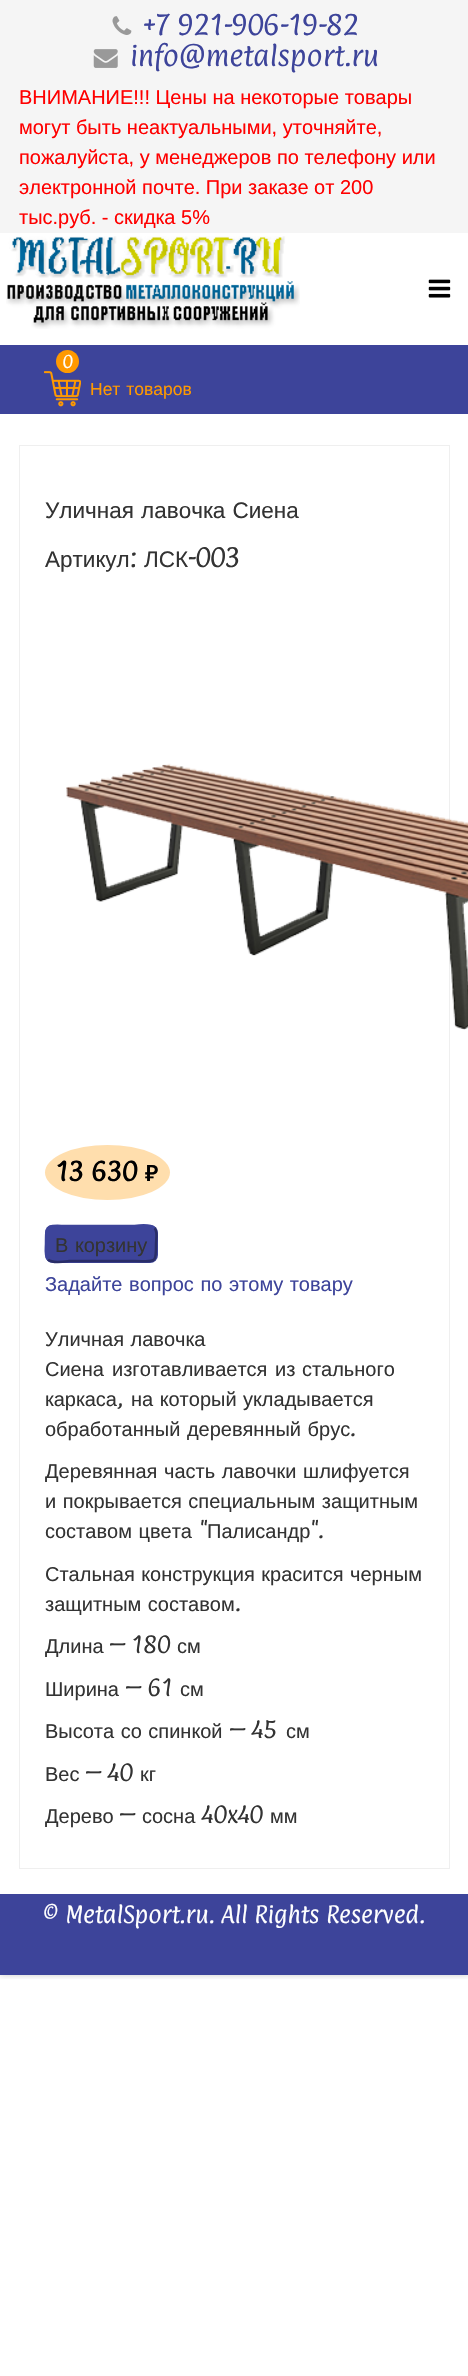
void draw(SkCanvas* canvas) {
  SkPaint paint;
  paint.setAntiAlias(true);
  auto face = [&](const char* family, int weight, float size, bool italic = false) {
    SkFontStyle style(weight, SkFontStyle::kNormal_Width,
      italic ? SkFontStyle::kItalic_Slant : SkFontStyle::kUpright_Slant);
    SkFont result(fontMgr->matchFamilyStyle(family, style), size);
    result.setSubpixel(true);
    return result;
  };
  auto writeSpaced = [&](const char* s, float x, float y, const SkFont& font, const SkPaint& ink, float letter, float word) {
    std::vector<SkGlyphID> glyphs(font.countText(s, strlen(s), SkTextEncoding::kUTF8));
    std::vector<float> xs(glyphs.size());
    font.textToGlyphs(s, strlen(s), SkTextEncoding::kUTF8, glyphs);
    font.getXPos(glyphs, xs, x);
    float extra = 0;
    for (size_t i = 0; i < glyphs.size(); i++) {
      xs[i] += extra;
      extra += letter + word * (glyphs[i] == font.unicharToGlyph(' '));
    }
    canvas->drawTextBlob(SkTextBlob::MakeFromPosHGlyphs(glyphs, xs, y, font), 0, 0, ink);
  };
  auto paste = [&](const char* path, float x, float y, float w, float h) {
    auto image = SkImages::DeferredFromEncodedData(SkData::MakeFromFileName(path));
    canvas->drawImageRect(image, SkRect::MakeXYWH(x, y, w, h), SkSamplingOptions());
  };
  auto shape = [&](const char* data, bool evenOdd = false) {
    SkPath result = *SkParsePath::FromSVGString(data);
    if (evenOdd) result.setFillType(SkPathFillType::kEvenOdd);
    return result;
  };
  canvas->clear(0xffffffff);
  canvas->save();
  canvas->clipRect(SkRect::MakeXYWH(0, 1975, 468, 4));
  paint.setColor(0x33000000);
  paint.setMaskFilter(SkMaskFilter::MakeBlur(kNormal_SkBlurStyle, 3));
  canvas->drawRect(SkRect::MakeXYWH(0, 0, 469, 1975), paint);
  paint.setMaskFilter(nullptr);
  canvas->restore();
  paint.setColor(0xfff5f5f5);
  canvas->drawRect(SkRect::MakeXYWH(0, 0, 468, 233), paint);
  paste("img/1.png", 112, 16, 20, 19);
  paste("img/2.png", 93, 49, 25, 19);
  paste("img/3.png", 6, 236, 294, 93);
  paste("img/4.png", 428, 279, 23, 19);
  paint.setColor(0xff3d449a);
  canvas->drawRect(SkRect::MakeXYWH(0, 345, 468, 69), paint);
  paste("img/5.png", 44, 371, 37, 36);
  paint.setColor(0xffff9900);
  canvas->drawCircle(67.5f, 361.5f, 11.5f, paint);
  paint.setStroke(true);
  paint.setStrokeWidth(1);
  paint.setColor(0xffefefef);
  canvas->drawRect(SkRect::MakeXYWH(19.5f, 445.5f, 430, 1423), paint);
  paste("img/6.png", 66, 763, 402, 267);
  paint.setStroke(false);
  paint.setColor(0xffffdead);
  canvas->drawOval(SkRect::MakeXYWH(45, 1145, 125, 55), paint);
  paint.setColor(0xff3d449a);
  canvas->drawRoundRect(SkRect::MakeXYWH(45, 1225, 113, 38), 8, 8, paint);
  paint.setStroke(true);
  paint.setStrokeWidth(2.5f);
  paint.setColor(0xff292d67);
  canvas->drawPath(shape("M154.5 1228C158 1231.5 156 1239.5 156 1244C156 1264.5 156.5 1261 134 1261H69C68 1261 52.5 1264 48 1259.5"), paint);
  paint.setColor(0xff3d449a);
  canvas->drawPath(shape("M48 1259.5C44.5 1256 46 1248 46 1244C46 1223 46 1226 69 1226H134C134.5 1226 150 1223.5 154.5 1228"), paint);
  paint.setStroke(false);
  canvas->drawRect(SkRect::MakeXYWH(0, 1894, 468, 81), paint);
  auto f0 = face("Paprika", 400, 24);
  canvas->drawString("+7 921-906-19-82", 143, 35, f0, paint);
  canvas->drawString("info@metalsport.ru", 130, 66, f0, paint);
  auto f1 = face("Liberation Sans", 400, 20);
  paint.setColor(0xffff0000);
  {
    const struct { const char* s; float x, y; } items[] = {
      {"ВНИМАНИЕ!!! Цены на некоторые товары", 19, 104},
      {"могут быть неактуальными, уточняйте,", 19, 134},
      {"пожалуйста, у менеджеров по телефону или", 19, 164},
      {"электронной почте. При заказе от 200", 19, 194},
      {"тыс.руб. - скидка 5%", 19, 224},
    };
    for (auto [s, x, y] : items) {
      canvas->drawString(s, x, y, f1, paint);
    }
  }
  auto f2 = face("Paprika", 400, 15);
  paint.setColor(0xffffffff);
  canvas->drawString("0", 63, 368, f2, paint);
  auto f3 = face("Liberation Sans", 400, 17.5f);
  paint.setColor(0xffff9900);
  writeSpaced("Нет товаров", 90, 395, f3, paint, 0, 1);
  auto f4 = face("Liberation Sans", 400, 22.5f);
  paint.setColor(0xff333333);
  writeSpaced("Уличная лавочка Сиена", 45, 518, f4, paint, 0, 1);
  canvas->drawString("Артикул", 45, 567, f4, paint);
  auto f5 = face("Paprika", 400, 22.5f);
  canvas->drawString(":", 130, 567, f5, paint);
  canvas->drawString("ЛСК", 144, 567, f4, paint);
  canvas->drawString("-003", 188, 567, f5, paint);
  auto f6 = face("Paprika", 700, 22.5f);
  paint.setColor(0xff000000);
  canvas->drawString("13 630", 56, 1181, f6, paint);
  auto f7 = face("Noto Sans", 600, 22.5f);
  canvas->drawString("₽", 145, 1181, f7, paint);
  paint.setColor(0xff333333);
  writeSpaced("В корзину", 55, 1252, f1, paint, 0, 1);
  paint.setColor(0xff3d449a);
  writeSpaced("Задайте вопрос по этому товару", 45, 1291, f1, paint, 0, 1);
  paint.setColor(0xff333333);
  writeSpaced("Уличная лавочка", 45, 1346, f1, paint, 0, 1);
  canvas->drawString("Сиена", 45, 1376, f1, paint);
  canvas->drawString("изготавливается", 112, 1376, f1, paint);
  writeSpaced("из стального", 275, 1376, f1, paint, 0, 1);
  canvas->drawString("каркаса", 45, 1406, f1, paint);
  auto f8 = face("Paprika", 400, 20);
  canvas->drawString(",", 117, 1406, f8, paint);
  writeSpaced("на который укладывается", 131, 1406, f1, paint, 0, 1);
  writeSpaced("обработанный деревянный брус", 45, 1436, f1, paint, 0, 1);
  canvas->drawString(".", 350, 1436, f8, paint);
  {
    const struct { const char* s; float x, y; } items[] = {
      {"Деревянная часть лавочки шлифуется", 45, 1478},
      {"и покрывается специальным защитным", 45, 1508},
      {"составом цвета", 45, 1538},
    };
    for (auto [s, x, y] : items) {
      writeSpaced(s, x, y, f1, paint, 0, 1);
    }
  }
  canvas->drawString("\"", 199, 1538, f8, paint);
  canvas->drawString("Палисандр", 207, 1538, f1, paint);
  canvas->drawString("\".", 310, 1538, f8, paint);
  writeSpaced("Стальная конструкция красится черным", 45, 1581, f1, paint, 0, 1);
  writeSpaced("защитным составом", 45, 1611, f1, paint, 0, 1);
  canvas->drawString(".", 235, 1611, f8, paint);
  canvas->drawString("Длина", 45, 1653, f1, paint);
  canvas->drawString("– 180", 110, 1653, f8, paint);
  canvas->drawString("см", 177, 1653, f1, paint);
  canvas->drawString("Ширина", 45, 1696, f1, paint);
  canvas->drawString("– 61", 126, 1696, f8, paint);
  canvas->drawString("см", 180, 1696, f1, paint);
  writeSpaced("Высота со спинкой", 45, 1738, f1, paint, 0, 1);
  canvas->drawString("– 45", 230, 1738, f8, paint);
  canvas->drawString("см", 286, 1738, f1, paint);
  canvas->drawString("Вес", 45, 1781, f1, paint);
  canvas->drawString("– 40", 86, 1781, f8, paint);
  canvas->drawString("кг", 140, 1781, f1, paint);
  canvas->drawString("Дерево", 45, 1823, f1, paint);
  canvas->drawString("–", 120, 1823, f8, paint);
  canvas->drawString("сосна", 142, 1823, f1, paint);
  canvas->drawString("40x40", 202, 1823, f8, paint);
  canvas->drawString("мм", 270, 1823, f1, paint);
  paint.setColor(0xffffffff);
  canvas->drawString("© MetalSport.ru. All Rights Reserved.", 43, 1923, f8, paint);
}
